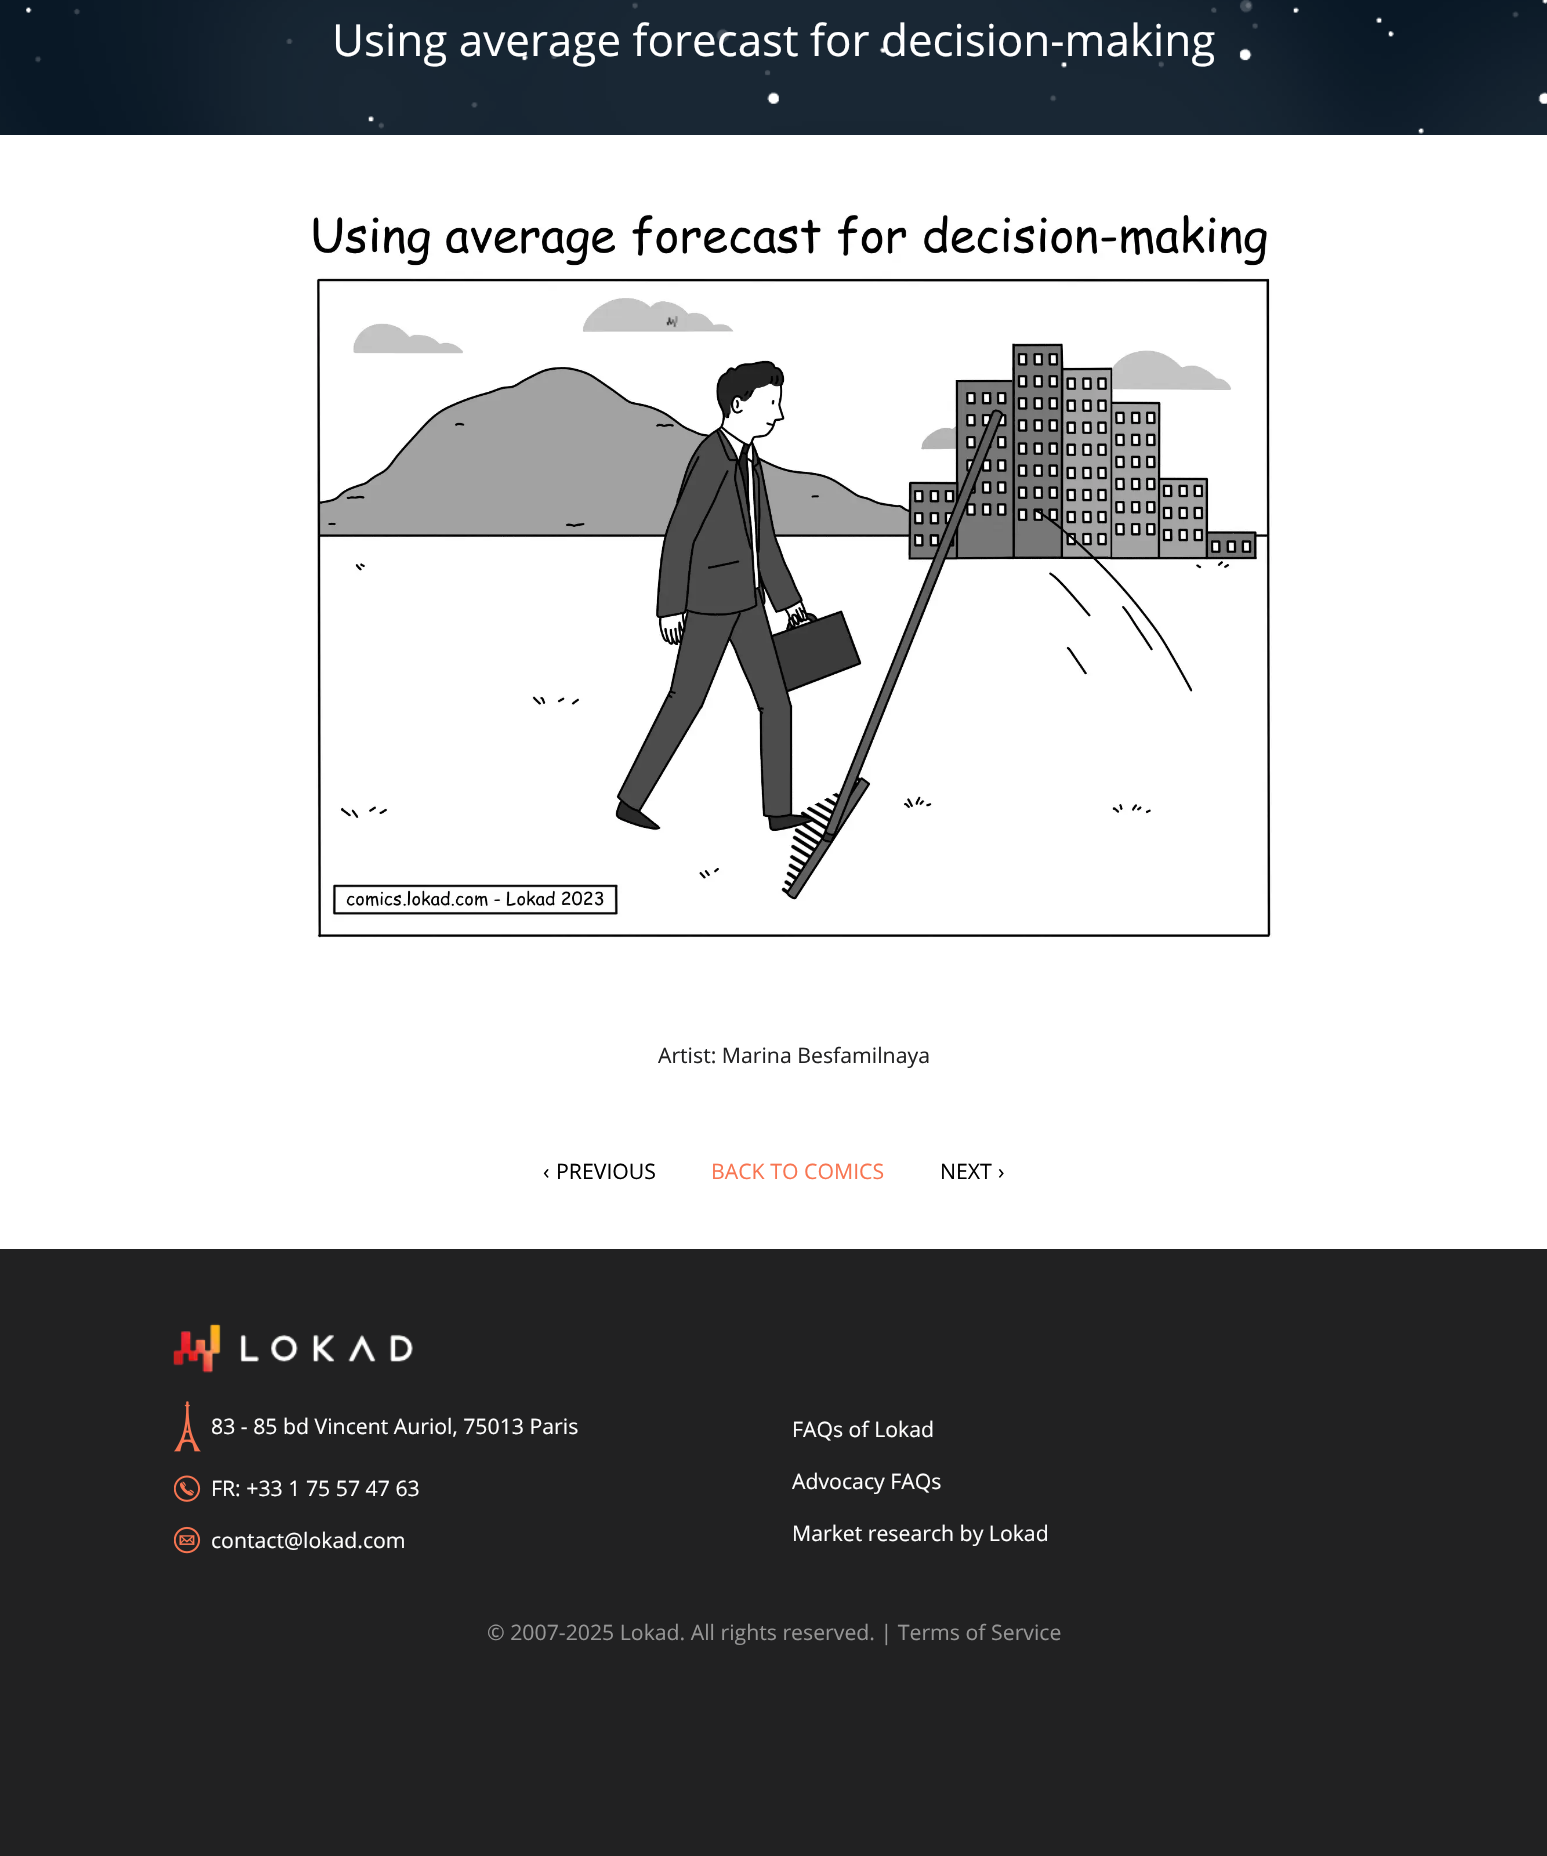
void draw(SkCanvas* canvas) {
  SkPaint paint;
  paint.setAntiAlias(true);
  auto face = [&](const char* family, int weight, float size, bool italic = false) {
    SkFontStyle style(weight, SkFontStyle::kNormal_Width,
      italic ? SkFontStyle::kItalic_Slant : SkFontStyle::kUpright_Slant);
    SkFont result(fontMgr->matchFamilyStyle(family, style), size);
    result.setSubpixel(true);
    return result;
  };
  auto paste = [&](const char* path, float x, float y, float w, float h) {
    auto image = SkImages::DeferredFromEncodedData(SkData::MakeFromFileName(path));
    canvas->drawImageRect(image, SkRect::MakeXYWH(x, y, w, h), SkSamplingOptions());
  };
  canvas->clear(0xffffffff);
  paste("img/1.png", 0, 0, 1547, 135);
  paste("img/2.png", 313, 214, 959, 724);
  paint.setColor(0xff212122);
  canvas->drawRect(SkRect::MakeXYWH(0, 1249, 1547, 607), paint);
  paste("img/3.png", 173, 1323, 240, 50);
  paste("img/4.png", 174, 1401, 27, 51);
  paste("img/5.png", 174, 1475, 27, 27);
  paste("img/6.png", 174, 1526, 27, 28);
  auto f0 = face("Open Sans", 400, 44);
  paint.setColor(0xffffffff);
  canvas->drawString("Using average forecast for decision-making", 332, 56, f0, paint);
  auto f1 = face("Open Sans", 400, 21.25f);
  paint.setColor(0xff212122);
  canvas->drawString("Artist: Marina Besfamilnaya", 658, 1063, f1, paint);
  paint.setColor(0xff000000);
  canvas->drawString("‹", 543, 1179, f1, paint);
  canvas->drawString("PREVIOUS", 556, 1179, f1, paint);
  paint.setColor(0xfff87551);
  canvas->drawString("BACK TO COMICS", 711, 1179, f1, paint);
  paint.setColor(0xff000000);
  canvas->drawString("NEXT", 940, 1179, f1, paint);
  canvas->drawString("›", 998, 1179, f1, paint);
  paint.setColor(0xffffffff);
  {
    const struct { const char* s; float x, y; } items[] = {
      {"83 - 85 bd Vincent Auriol, 75013 Paris", 211, 1434},
      {"FR: +33 1 75 57 47 63", 211, 1496},
      {"contact@lokad.com", 211, 1548},
      {"FAQs of Lokad", 792, 1437},
      {"Advocacy FAQs", 792, 1489},
      {"Market research by Lokad", 792, 1541},
    };
    for (auto [s, x, y] : items) {
      canvas->drawString(s, x, y, f1, paint);
    }
  }
  paint.setColor(0xff969696);
  canvas->drawString("© 2007-2025 Lokad. All rights reserved. | Terms of Service", 487, 1640, f1, paint);
}
